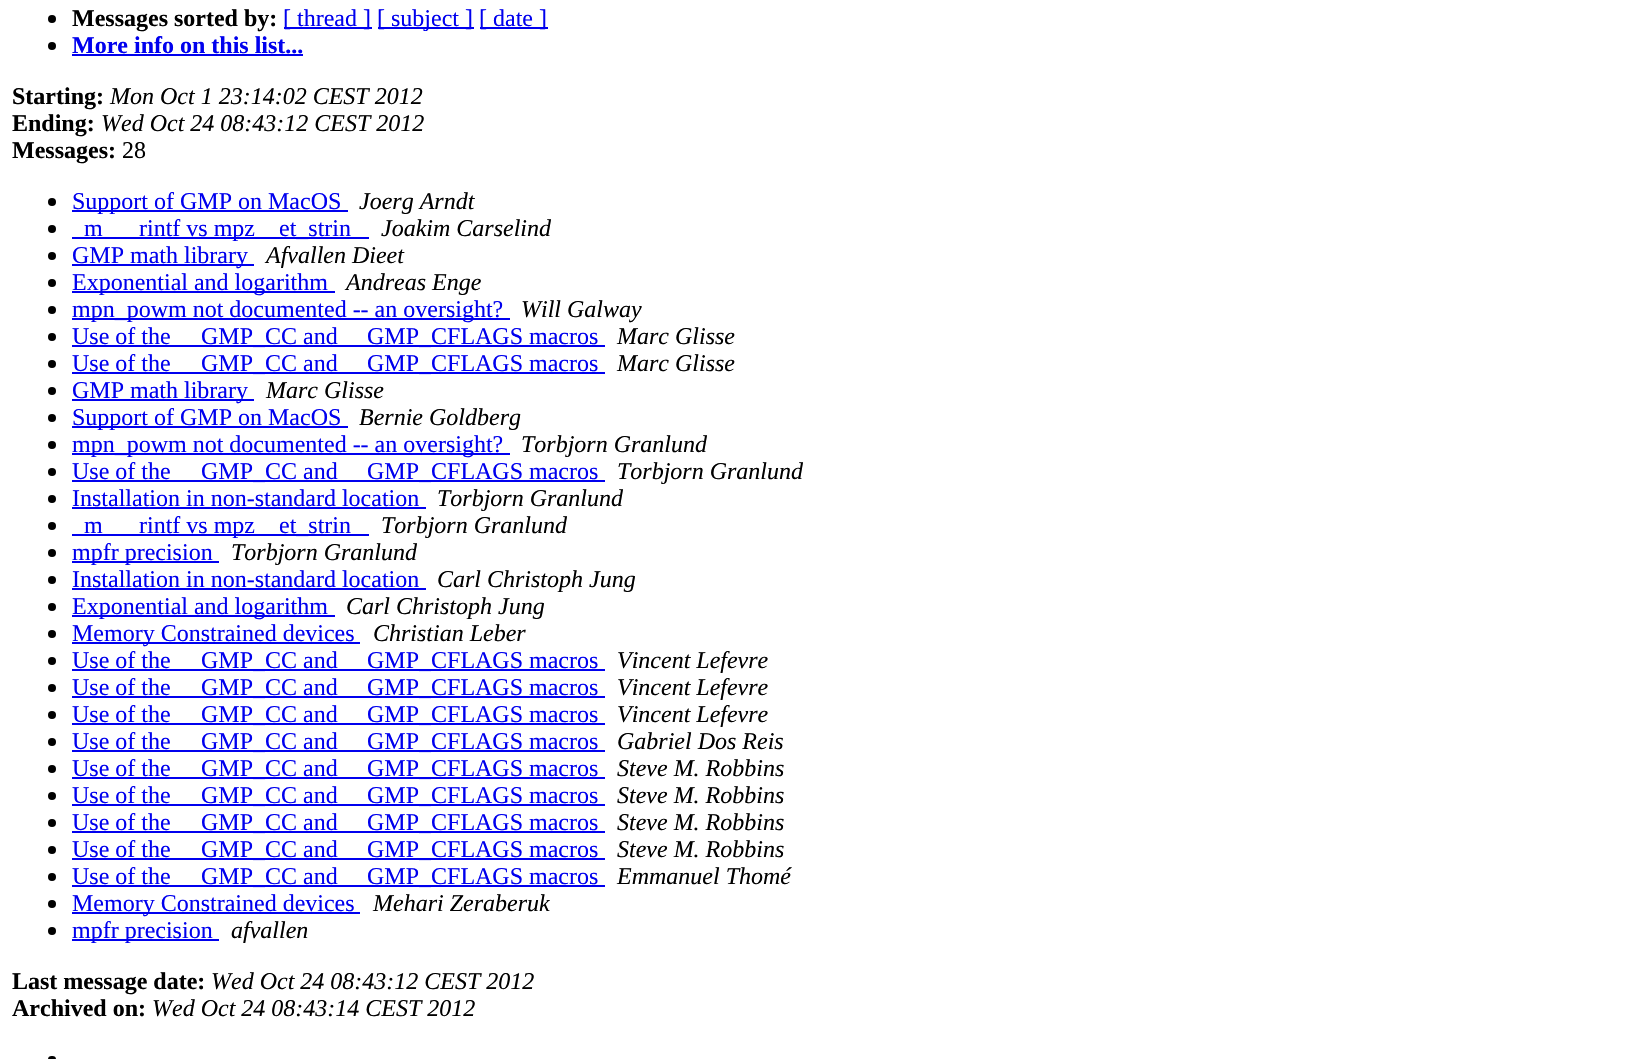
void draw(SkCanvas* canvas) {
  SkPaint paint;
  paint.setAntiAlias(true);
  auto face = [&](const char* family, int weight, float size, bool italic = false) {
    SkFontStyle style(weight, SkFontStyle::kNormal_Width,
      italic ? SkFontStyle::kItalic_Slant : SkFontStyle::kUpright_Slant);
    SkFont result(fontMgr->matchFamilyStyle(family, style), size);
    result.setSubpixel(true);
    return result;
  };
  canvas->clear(0xffffffff);
  paint.setColor(0xff000000);
  canvas->drawCircle(52, 19, 4, paint);
  {
    const struct { float x, y, w, h; SkColor color; } items[] = {
      {284, 27, 88, 2, 0xff0000ee},
      {378, 27, 96, 2, 0xff0000ee},
      {480, 27, 68, 2, 0xff0000ee},
    };
    for (auto [x, y, w, h, color] : items) {
      paint.setColor(color);
      canvas->drawRect(SkRect::MakeXYWH(x, y, w, h), paint);
    }
  }
  paint.setColor(0xff000000);
  canvas->drawCircle(52, 46, 4, paint);
  paint.setColor(0xff0000ee);
  canvas->drawRect(SkRect::MakeXYWH(72, 54, 231, 2), paint);
  paint.setColor(0xff000000);
  canvas->drawCircle(52, 202, 4, paint);
  paint.setColor(0xff0000ee);
  canvas->drawRect(SkRect::MakeXYWH(72, 210, 276, 2), paint);
  paint.setColor(0xff000000);
  canvas->drawCircle(52, 229, 4, paint);
  paint.setColor(0xff0000ee);
  canvas->drawRect(SkRect::MakeXYWH(72, 237, 297, 2), paint);
  paint.setColor(0xff000000);
  canvas->drawCircle(52, 256, 4, paint);
  paint.setColor(0xff0000ee);
  canvas->drawRect(SkRect::MakeXYWH(72, 264, 182, 2), paint);
  paint.setColor(0xff000000);
  canvas->drawCircle(52, 283, 4, paint);
  paint.setColor(0xff0000ee);
  canvas->drawRect(SkRect::MakeXYWH(72, 291, 263, 2), paint);
  paint.setColor(0xff000000);
  canvas->drawCircle(52, 310, 4, paint);
  paint.setColor(0xff0000ee);
  canvas->drawRect(SkRect::MakeXYWH(72, 318, 438, 2), paint);
  paint.setColor(0xff000000);
  canvas->drawCircle(52, 337, 4, paint);
  paint.setColor(0xff0000ee);
  canvas->drawRect(SkRect::MakeXYWH(72, 345, 533, 2), paint);
  paint.setColor(0xff000000);
  canvas->drawCircle(52, 364, 4, paint);
  paint.setColor(0xff0000ee);
  canvas->drawRect(SkRect::MakeXYWH(72, 372, 533, 2), paint);
  paint.setColor(0xff000000);
  canvas->drawCircle(52, 391, 4, paint);
  paint.setColor(0xff0000ee);
  canvas->drawRect(SkRect::MakeXYWH(72, 399, 182, 2), paint);
  paint.setColor(0xff000000);
  canvas->drawCircle(52, 418, 4, paint);
  paint.setColor(0xff0000ee);
  canvas->drawRect(SkRect::MakeXYWH(72, 426, 276, 2), paint);
  paint.setColor(0xff000000);
  canvas->drawCircle(52, 445, 4, paint);
  paint.setColor(0xff0000ee);
  canvas->drawRect(SkRect::MakeXYWH(72, 453, 438, 2), paint);
  paint.setColor(0xff000000);
  canvas->drawCircle(52, 472, 4, paint);
  paint.setColor(0xff0000ee);
  canvas->drawRect(SkRect::MakeXYWH(72, 480, 533, 2), paint);
  paint.setColor(0xff000000);
  canvas->drawCircle(52, 499, 4, paint);
  paint.setColor(0xff0000ee);
  canvas->drawRect(SkRect::MakeXYWH(72, 507, 354, 2), paint);
  paint.setColor(0xff000000);
  canvas->drawCircle(52, 526, 4, paint);
  paint.setColor(0xff0000ee);
  canvas->drawRect(SkRect::MakeXYWH(72, 534, 297, 2), paint);
  paint.setColor(0xff000000);
  canvas->drawCircle(52, 553, 4, paint);
  paint.setColor(0xff0000ee);
  canvas->drawRect(SkRect::MakeXYWH(72, 561, 147, 2), paint);
  paint.setColor(0xff000000);
  canvas->drawCircle(52, 580, 4, paint);
  paint.setColor(0xff0000ee);
  canvas->drawRect(SkRect::MakeXYWH(72, 588, 354, 2), paint);
  paint.setColor(0xff000000);
  canvas->drawCircle(52, 607, 4, paint);
  paint.setColor(0xff0000ee);
  canvas->drawRect(SkRect::MakeXYWH(72, 615, 263, 2), paint);
  paint.setColor(0xff000000);
  canvas->drawCircle(52, 634, 4, paint);
  paint.setColor(0xff0000ee);
  canvas->drawRect(SkRect::MakeXYWH(72, 642, 288, 2), paint);
  paint.setColor(0xff000000);
  canvas->drawCircle(52, 661, 4, paint);
  paint.setColor(0xff0000ee);
  canvas->drawRect(SkRect::MakeXYWH(72, 669, 533, 2), paint);
  paint.setColor(0xff000000);
  canvas->drawCircle(52, 688, 4, paint);
  paint.setColor(0xff0000ee);
  canvas->drawRect(SkRect::MakeXYWH(72, 696, 533, 2), paint);
  paint.setColor(0xff000000);
  canvas->drawCircle(52, 715, 4, paint);
  paint.setColor(0xff0000ee);
  canvas->drawRect(SkRect::MakeXYWH(72, 723, 533, 2), paint);
  paint.setColor(0xff000000);
  canvas->drawCircle(52, 742, 4, paint);
  paint.setColor(0xff0000ee);
  canvas->drawRect(SkRect::MakeXYWH(72, 750, 533, 2), paint);
  paint.setColor(0xff000000);
  canvas->drawCircle(52, 769, 4, paint);
  paint.setColor(0xff0000ee);
  canvas->drawRect(SkRect::MakeXYWH(72, 777, 533, 2), paint);
  paint.setColor(0xff000000);
  canvas->drawCircle(52, 796, 4, paint);
  paint.setColor(0xff0000ee);
  canvas->drawRect(SkRect::MakeXYWH(72, 804, 533, 2), paint);
  paint.setColor(0xff000000);
  canvas->drawCircle(52, 823, 4, paint);
  paint.setColor(0xff0000ee);
  canvas->drawRect(SkRect::MakeXYWH(72, 831, 533, 2), paint);
  paint.setColor(0xff000000);
  canvas->drawCircle(52, 850, 4, paint);
  paint.setColor(0xff0000ee);
  canvas->drawRect(SkRect::MakeXYWH(72, 858, 533, 2), paint);
  paint.setColor(0xff000000);
  canvas->drawCircle(52, 877, 4, paint);
  paint.setColor(0xff0000ee);
  canvas->drawRect(SkRect::MakeXYWH(72, 885, 533, 2), paint);
  paint.setColor(0xff000000);
  canvas->drawCircle(52, 904, 4, paint);
  paint.setColor(0xff0000ee);
  canvas->drawRect(SkRect::MakeXYWH(72, 912, 288, 2), paint);
  paint.setColor(0xff000000);
  canvas->drawCircle(52, 931, 4, paint);
  paint.setColor(0xff0000ee);
  canvas->drawRect(SkRect::MakeXYWH(72, 939, 147, 2), paint);
  paint.setColor(0xff000000);
  canvas->drawRoundRect(SkRect::MakeXYWH(48, 1056, 8, 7), 4, 4, paint);
  auto f0 = face("Liberation Serif", 700, 24);
  canvas->drawString("Messages sorted by:", 72, 26, f0, paint);
  auto f1 = face("Liberation Serif", 400, 24);
  paint.setColor(0xff0000ee);
  {
    const struct { const char* s; float x, y; } items[] = {
      {"[ thread ]", 283, 26},
      {"[ subject ]", 377, 26},
      {"[ date ]", 479, 26},
    };
    for (auto [s, x, y] : items) {
      canvas->drawString(s, x, y, f1, paint);
    }
  }
  canvas->drawString("More info on this list...", 72, 53, f0, paint);
  paint.setColor(0xff000000);
  canvas->drawString("Starting:", 12, 104, f0, paint);
  auto f2 = face("Liberation Serif", 400, 24, true);
  canvas->drawString("Mon Oct 1 23:14:02 CEST 2012", 110, 104, f2, paint);
  canvas->drawString("Ending:", 12, 131, f0, paint);
  canvas->drawString("Wed Oct 24 08:43:12 CEST 2012", 101, 131, f2, paint);
  canvas->drawString("Messages:", 12, 158, f0, paint);
  canvas->drawString("28", 122, 158, f1, paint);
  paint.setColor(0xff0000ee);
  canvas->drawString("Support of GMP on MacOS", 72, 209, f1, paint);
  paint.setColor(0xff000000);
  canvas->drawString("Joerg Arndt", 359, 209, f2, paint);
  paint.setColor(0xff0000ee);
  {
    const struct { const char* s; float x, y; } items[] = {
      {"m", 84, 236},
      {"rintf vs mpz", 139, 236},
      {"et_strin", 279, 236},
    };
    for (auto [s, x, y] : items) {
      canvas->drawString(s, x, y, f1, paint);
    }
  }
  paint.setColor(0xff000000);
  canvas->drawString("Joakim Carselind", 381, 236, f2, paint);
  paint.setColor(0xff0000ee);
  canvas->drawString("GMP math library", 72, 263, f1, paint);
  paint.setColor(0xff000000);
  canvas->drawString("Afvallen Dieet", 266, 263, f2, paint);
  paint.setColor(0xff0000ee);
  canvas->drawString("Exponential and logarithm", 72, 290, f1, paint);
  paint.setColor(0xff000000);
  canvas->drawString("Andreas Enge", 346, 290, f2, paint);
  paint.setColor(0xff0000ee);
  canvas->drawString("mpn_powm not documented -- an oversight?", 72, 317, f1, paint);
  paint.setColor(0xff000000);
  canvas->drawString("Will Galway", 521, 317, f2, paint);
  paint.setColor(0xff0000ee);
  {
    const struct { const char* s; float x, y; } items[] = {
      {"Use of the", 72, 344},
      {"GMP_CC and", 201, 344},
      {"GMP_CFLAGS macros", 367, 344},
    };
    for (auto [s, x, y] : items) {
      canvas->drawString(s, x, y, f1, paint);
    }
  }
  paint.setColor(0xff000000);
  canvas->drawString("Marc Glisse", 617, 344, f2, paint);
  paint.setColor(0xff0000ee);
  {
    const struct { const char* s; float x, y; } items[] = {
      {"Use of the", 72, 371},
      {"GMP_CC and", 201, 371},
      {"GMP_CFLAGS macros", 367, 371},
    };
    for (auto [s, x, y] : items) {
      canvas->drawString(s, x, y, f1, paint);
    }
  }
  paint.setColor(0xff000000);
  canvas->drawString("Marc Glisse", 617, 371, f2, paint);
  paint.setColor(0xff0000ee);
  canvas->drawString("GMP math library", 72, 398, f1, paint);
  paint.setColor(0xff000000);
  canvas->drawString("Marc Glisse", 266, 398, f2, paint);
  paint.setColor(0xff0000ee);
  canvas->drawString("Support of GMP on MacOS", 72, 425, f1, paint);
  paint.setColor(0xff000000);
  canvas->drawString("Bernie Goldberg", 359, 425, f2, paint);
  paint.setColor(0xff0000ee);
  canvas->drawString("mpn_powm not documented -- an oversight?", 72, 452, f1, paint);
  paint.setColor(0xff000000);
  canvas->drawString("Torbjorn Granlund", 521, 452, f2, paint);
  paint.setColor(0xff0000ee);
  {
    const struct { const char* s; float x, y; } items[] = {
      {"Use of the", 72, 479},
      {"GMP_CC and", 201, 479},
      {"GMP_CFLAGS macros", 367, 479},
    };
    for (auto [s, x, y] : items) {
      canvas->drawString(s, x, y, f1, paint);
    }
  }
  paint.setColor(0xff000000);
  canvas->drawString("Torbjorn Granlund", 617, 479, f2, paint);
  paint.setColor(0xff0000ee);
  canvas->drawString("Installation in non-standard location", 72, 506, f1, paint);
  paint.setColor(0xff000000);
  canvas->drawString("Torbjorn Granlund", 437, 506, f2, paint);
  paint.setColor(0xff0000ee);
  {
    const struct { const char* s; float x, y; } items[] = {
      {"m", 84, 533},
      {"rintf vs mpz", 139, 533},
      {"et_strin", 279, 533},
    };
    for (auto [s, x, y] : items) {
      canvas->drawString(s, x, y, f1, paint);
    }
  }
  paint.setColor(0xff000000);
  canvas->drawString("Torbjorn Granlund", 381, 533, f2, paint);
  paint.setColor(0xff0000ee);
  canvas->drawString("mpfr precision", 72, 560, f1, paint);
  paint.setColor(0xff000000);
  canvas->drawString("Torbjorn Granlund", 231, 560, f2, paint);
  paint.setColor(0xff0000ee);
  canvas->drawString("Installation in non-standard location", 72, 587, f1, paint);
  paint.setColor(0xff000000);
  canvas->drawString("Carl Christoph Jung", 437, 587, f2, paint);
  paint.setColor(0xff0000ee);
  canvas->drawString("Exponential and logarithm", 72, 614, f1, paint);
  paint.setColor(0xff000000);
  canvas->drawString("Carl Christoph Jung", 346, 614, f2, paint);
  paint.setColor(0xff0000ee);
  canvas->drawString("Memory Constrained devices", 72, 641, f1, paint);
  paint.setColor(0xff000000);
  canvas->drawString("Christian Leber", 373, 641, f2, paint);
  paint.setColor(0xff0000ee);
  {
    const struct { const char* s; float x, y; } items[] = {
      {"Use of the", 72, 668},
      {"GMP_CC and", 201, 668},
      {"GMP_CFLAGS macros", 367, 668},
    };
    for (auto [s, x, y] : items) {
      canvas->drawString(s, x, y, f1, paint);
    }
  }
  paint.setColor(0xff000000);
  canvas->drawString("Vincent Lefevre", 617, 668, f2, paint);
  paint.setColor(0xff0000ee);
  {
    const struct { const char* s; float x, y; } items[] = {
      {"Use of the", 72, 695},
      {"GMP_CC and", 201, 695},
      {"GMP_CFLAGS macros", 367, 695},
    };
    for (auto [s, x, y] : items) {
      canvas->drawString(s, x, y, f1, paint);
    }
  }
  paint.setColor(0xff000000);
  canvas->drawString("Vincent Lefevre", 617, 695, f2, paint);
  paint.setColor(0xff0000ee);
  {
    const struct { const char* s; float x, y; } items[] = {
      {"Use of the", 72, 722},
      {"GMP_CC and", 201, 722},
      {"GMP_CFLAGS macros", 367, 722},
    };
    for (auto [s, x, y] : items) {
      canvas->drawString(s, x, y, f1, paint);
    }
  }
  paint.setColor(0xff000000);
  canvas->drawString("Vincent Lefevre", 617, 722, f2, paint);
  paint.setColor(0xff0000ee);
  {
    const struct { const char* s; float x, y; } items[] = {
      {"Use of the", 72, 749},
      {"GMP_CC and", 201, 749},
      {"GMP_CFLAGS macros", 367, 749},
    };
    for (auto [s, x, y] : items) {
      canvas->drawString(s, x, y, f1, paint);
    }
  }
  paint.setColor(0xff000000);
  canvas->drawString("Gabriel Dos Reis", 617, 749, f2, paint);
  paint.setColor(0xff0000ee);
  {
    const struct { const char* s; float x, y; } items[] = {
      {"Use of the", 72, 776},
      {"GMP_CC and", 201, 776},
      {"GMP_CFLAGS macros", 367, 776},
    };
    for (auto [s, x, y] : items) {
      canvas->drawString(s, x, y, f1, paint);
    }
  }
  paint.setColor(0xff000000);
  canvas->drawString("Steve M. Robbins", 617, 776, f2, paint);
  paint.setColor(0xff0000ee);
  {
    const struct { const char* s; float x, y; } items[] = {
      {"Use of the", 72, 803},
      {"GMP_CC and", 201, 803},
      {"GMP_CFLAGS macros", 367, 803},
    };
    for (auto [s, x, y] : items) {
      canvas->drawString(s, x, y, f1, paint);
    }
  }
  paint.setColor(0xff000000);
  canvas->drawString("Steve M. Robbins", 617, 803, f2, paint);
  paint.setColor(0xff0000ee);
  {
    const struct { const char* s; float x, y; } items[] = {
      {"Use of the", 72, 830},
      {"GMP_CC and", 201, 830},
      {"GMP_CFLAGS macros", 367, 830},
    };
    for (auto [s, x, y] : items) {
      canvas->drawString(s, x, y, f1, paint);
    }
  }
  paint.setColor(0xff000000);
  canvas->drawString("Steve M. Robbins", 617, 830, f2, paint);
  paint.setColor(0xff0000ee);
  {
    const struct { const char* s; float x, y; } items[] = {
      {"Use of the", 72, 857},
      {"GMP_CC and", 201, 857},
      {"GMP_CFLAGS macros", 367, 857},
    };
    for (auto [s, x, y] : items) {
      canvas->drawString(s, x, y, f1, paint);
    }
  }
  paint.setColor(0xff000000);
  canvas->drawString("Steve M. Robbins", 617, 857, f2, paint);
  paint.setColor(0xff0000ee);
  {
    const struct { const char* s; float x, y; } items[] = {
      {"Use of the", 72, 884},
      {"GMP_CC and", 201, 884},
      {"GMP_CFLAGS macros", 367, 884},
    };
    for (auto [s, x, y] : items) {
      canvas->drawString(s, x, y, f1, paint);
    }
  }
  paint.setColor(0xff000000);
  canvas->drawString("Emmanuel Thomé", 617, 884, f2, paint);
  paint.setColor(0xff0000ee);
  canvas->drawString("Memory Constrained devices", 72, 911, f1, paint);
  paint.setColor(0xff000000);
  canvas->drawString("Mehari Zeraberuk", 373, 911, f2, paint);
  paint.setColor(0xff0000ee);
  canvas->drawString("mpfr precision", 72, 938, f1, paint);
  paint.setColor(0xff000000);
  canvas->drawString("afvallen", 231, 938, f2, paint);
  canvas->drawString("Last message date:", 12, 989, f0, paint);
  canvas->drawString("Wed Oct 24 08:43:12 CEST 2012", 211, 989, f2, paint);
  canvas->drawString("Archived on:", 12, 1016, f0, paint);
  canvas->drawString("Wed Oct 24 08:43:14 CEST 2012", 152, 1016, f2, paint);
}
